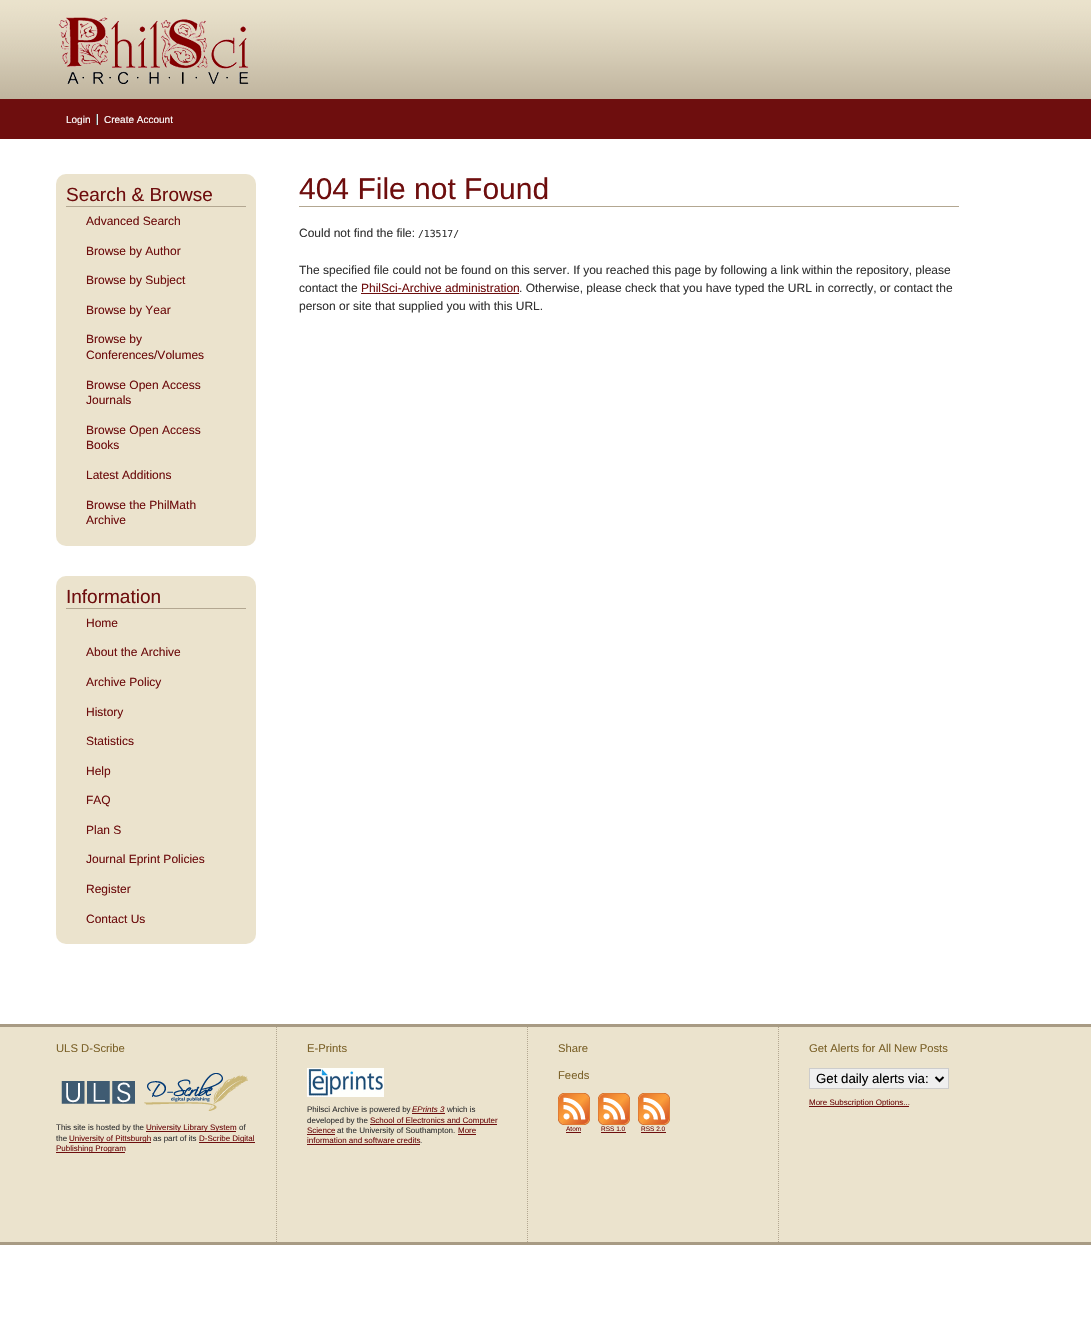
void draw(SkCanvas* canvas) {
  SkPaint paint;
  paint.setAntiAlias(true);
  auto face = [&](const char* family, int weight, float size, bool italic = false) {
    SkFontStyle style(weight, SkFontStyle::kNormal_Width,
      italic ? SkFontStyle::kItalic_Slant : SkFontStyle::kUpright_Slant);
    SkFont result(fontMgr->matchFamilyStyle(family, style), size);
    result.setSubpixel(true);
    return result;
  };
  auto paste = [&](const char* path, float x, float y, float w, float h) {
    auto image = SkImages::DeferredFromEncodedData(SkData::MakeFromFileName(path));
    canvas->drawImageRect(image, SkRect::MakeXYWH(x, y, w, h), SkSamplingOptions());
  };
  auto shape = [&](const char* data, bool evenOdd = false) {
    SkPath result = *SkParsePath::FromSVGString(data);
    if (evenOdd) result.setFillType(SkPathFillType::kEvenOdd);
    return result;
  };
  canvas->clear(0xffffffff);
  paste("img/1.png", 0, 0, 1091, 139);
  paste("img/2.png", 56, 0, 980, 99);
  paint.setColor(0xff606060);
  canvas->drawRect(SkRect::MakeXYWH(96, 114, 1, 11), paint);
  paint.setColor(0xffe8e8e8);
  canvas->drawRect(SkRect::MakeXYWH(97, 114, 1, 11), paint);
  paint.setColor(0xffebe3cd);
  canvas->drawRoundRect(SkRect::MakeXYWH(56, 174, 200, 372), 10, 10, paint);
  paint.setColor(0xffb3a791);
  canvas->drawRect(SkRect::MakeXYWH(66, 206, 180, 1), paint);
  paint.setColor(0xffebe3cd);
  canvas->drawRoundRect(SkRect::MakeXYWH(56, 576, 200, 368), 10, 10, paint);
  {
    const struct { float x, y, w, h; SkColor color; } items[] = {
      {66, 608, 180, 1, 0xffb3a791},
      {299, 206, 660, 1, 0xffb3a791},
      {361, 293, 158, 1, 0xff6e0e0e},
      {0, 1027, 1091, 215, 0xffebe3cd},
      {0, 1024, 1091, 3, 0xffa89b84},
      {0, 1242, 1091, 3, 0xffa89b84},
    };
    for (auto [x, y, w, h, color] : items) {
      paint.setColor(color);
      canvas->drawRect(SkRect::MakeXYWH(x, y, w, h), paint);
    }
  }
  paint.setStroke(true);
  paint.setStrokeWidth(1);
  paint.setColor(0xffb3a791);
  paint.setPathEffect(SkDashPathEffect::Make({{1, 1}}, 0));
  canvas->drawPath(shape("M276.5 1027V1242"), paint);
  paint.setPathEffect(nullptr);
  paste("img/3.png", 61, 1073, 187, 38);
  paint.setStroke(false);
  {
    const struct { float x, y, w, h; SkColor color; } items[] = {
      {146, 1131, 90, 1, 0xff6e0e0e},
      {69, 1142, 82, 1, 0xff6e0e0e},
      {199, 1142, 56, 1, 0xff6e0e0e},
      {56, 1152, 69, 1, 0xff6e0e0e},
    };
    for (auto [x, y, w, h, color] : items) {
      paint.setColor(color);
      canvas->drawRect(SkRect::MakeXYWH(x, y, w, h), paint);
    }
  }
  paint.setStroke(true);
  paint.setColor(0xffb3a791);
  paint.setPathEffect(SkDashPathEffect::Make({{1, 1}}, 0));
  canvas->drawPath(shape("M527.5 1027V1242"), paint);
  paint.setPathEffect(nullptr);
  paste("img/4.png", 307, 1068, 77, 29);
  paint.setStroke(false);
  {
    const struct { float x, y, w, h; SkColor color; } items[] = {
      {412, 1113, 33, 1, 0xff6e0e0e},
      {370, 1124, 127, 1, 0xff6e0e0e},
      {307, 1134, 28, 1, 0xff6e0e0e},
      {458, 1134, 18, 1, 0xff6e0e0e},
      {307, 1144, 113, 1, 0xff6e0e0e},
    };
    for (auto [x, y, w, h, color] : items) {
      paint.setColor(color);
      canvas->drawRect(SkRect::MakeXYWH(x, y, w, h), paint);
    }
  }
  paint.setStroke(true);
  paint.setColor(0xffb3a791);
  paint.setPathEffect(SkDashPathEffect::Make({{1, 1}}, 0));
  canvas->drawPath(shape("M778.5 1027V1242"), paint);
  paint.setPathEffect(nullptr);
  paste("img/5.png", 558, 1093, 32, 32);
  paint.setStroke(false);
  paint.setColor(0xff6e0e0e);
  canvas->drawRect(SkRect::MakeXYWH(566, 1132, 15, 1), paint);
  paste("img/5.png", 598, 1093, 32, 32);
  canvas->drawRect(SkRect::MakeXYWH(601, 1132, 25, 1), paint);
  paste("img/5.png", 638, 1093, 32, 32);
  canvas->drawRect(SkRect::MakeXYWH(641, 1132, 25, 1), paint);
  paint.setColor(0xffefefef);
  canvas->drawRect(SkRect::MakeXYWH(809.5f, 1068.5f, 139, 20), paint);
  paint.setStroke(true);
  paint.setColor(0xffcccccc);
  canvas->drawRect(SkRect::MakeXYWH(809.5f, 1068.5f, 139, 20), paint);
  paint.setStrokeWidth(2);
  paint.setColor(0xff000000);
  canvas->drawPath(shape("M935.5 1077L939.5 1081L943.5 1077"), paint);
  paint.setStroke(false);
  paint.setColor(0xff6e0e0e);
  canvas->drawRect(SkRect::MakeXYWH(809, 1106, 100, 1), paint);
  auto f0 = face("Liberation Sans", 400, 10);
  paint.setColor(0xffffffff);
  canvas->drawString("Login", 66, 123, f0, paint);
  canvas->drawString("Create Account", 104, 123, f0, paint);
  auto f1 = face("Liberation Sans", 400, 19);
  paint.setColor(0xff6e0e0e);
  canvas->drawString("Search & Browse", 66, 201, f1, paint);
  auto f2 = face("Liberation Sans", 400, 12);
  {
    const struct { const char* s; float x, y; } items[] = {
      {"Advanced Search", 86, 225},
      {"Browse by Author", 86, 255},
      {"Browse by Subject", 86, 284},
      {"Browse by Year", 86, 314},
      {"Browse by", 86, 343},
      {"Conferences/Volumes", 86, 359},
      {"Browse Open Access", 86, 389},
      {"Journals", 86, 404},
      {"Browse Open Access", 86, 434},
      {"Books", 86, 449},
      {"Latest Additions", 86, 479},
      {"Browse the PhilMath", 86, 509},
      {"Archive", 86, 524},
    };
    for (auto [s, x, y] : items) {
      canvas->drawString(s, x, y, f2, paint);
    }
  }
  canvas->drawString("Information", 66, 603, f1, paint);
  {
    const struct { const char* s; float x, y; } items[] = {
      {"Home", 86, 627},
      {"About the Archive", 86, 656},
      {"Archive Policy", 86, 686},
      {"History", 86, 716},
      {"Statistics", 86, 745},
      {"Help", 86, 775},
      {"FAQ", 86, 804},
      {"Plan S", 86, 834},
      {"Journal Eprint Policies", 86, 863},
      {"Register", 86, 893},
      {"Contact Us", 86, 923},
    };
    for (auto [s, x, y] : items) {
      canvas->drawString(s, x, y, f2, paint);
    }
  }
  auto f3 = face("Liberation Sans", 400, 30);
  canvas->drawString("404 File not Found", 299, 199, f3, paint);
  paint.setColor(0xff333333);
  canvas->drawString("Could not find the file:", 299, 237, f2, paint);
  auto f4 = face("DejaVu Sans Mono", 400, 9.75f);
  canvas->drawString("/13517/", 418, 237, f4, paint);
  canvas->drawString("The specified file could not be found on this server. If you reached this page by following a link within the repository, please", 299, 274, f2, paint);
  canvas->drawString("contact the", 299, 292, f2, paint);
  paint.setColor(0xff6e0e0e);
  canvas->drawString("PhilSci-Archive administration", 361, 292, f2, paint);
  paint.setColor(0xff333333);
  canvas->drawString(". Otherwise, please check that you have typed the URL in correctly, or contact the", 519, 292, f2, paint);
  canvas->drawString("person or site that supplied you with this URL.", 299, 310, f2, paint);
  auto f5 = face("Liberation Sans", 400, 11.25f);
  paint.setColor(0xff7b6128);
  canvas->drawString("ULS D-Scribe", 56, 1052, f5, paint);
  auto f6 = face("Liberation Sans", 400, 8);
  paint.setColor(0xff333333);
  canvas->drawString("This site is hosted by the", 56, 1130, f6, paint);
  paint.setColor(0xff6e0e0e);
  canvas->drawString("University Library System", 146, 1130, f6, paint);
  paint.setColor(0xff333333);
  canvas->drawString("of", 239, 1130, f6, paint);
  canvas->drawString("the", 56, 1141, f6, paint);
  paint.setColor(0xff6e0e0e);
  canvas->drawString("University of Pittsburgh", 69, 1141, f6, paint);
  paint.setColor(0xff333333);
  canvas->drawString("as part of its", 153, 1141, f6, paint);
  paint.setColor(0xff6e0e0e);
  canvas->drawString("D-Scribe Digital", 199, 1141, f6, paint);
  canvas->drawString("Publishing Program", 56, 1151, f6, paint);
  paint.setColor(0xff7b6128);
  canvas->drawString("E-Prints", 307, 1052, f5, paint);
  paint.setColor(0xff333333);
  canvas->drawString("Philsci Archive is powered by", 307, 1112, f6, paint);
  auto f7 = face("Liberation Sans", 400, 8, true);
  paint.setColor(0xff6e0e0e);
  canvas->drawString("EPrints 3", 412, 1112, f7, paint);
  paint.setColor(0xff333333);
  canvas->drawString("which is", 447, 1112, f6, paint);
  canvas->drawString("developed by the", 307, 1123, f6, paint);
  paint.setColor(0xff6e0e0e);
  canvas->drawString("School of Electronics and Computer", 370, 1123, f6, paint);
  canvas->drawString("Science", 307, 1133, f6, paint);
  paint.setColor(0xff333333);
  canvas->drawString("at the University of Southampton.", 337, 1133, f6, paint);
  paint.setColor(0xff6e0e0e);
  canvas->drawString("More", 458, 1133, f6, paint);
  canvas->drawString("information and software credits", 307, 1143, f6, paint);
  paint.setColor(0xff333333);
  canvas->drawString(".", 420, 1143, f6, paint);
  paint.setColor(0xff7b6128);
  canvas->drawString("Share", 558, 1052, f5, paint);
  canvas->drawString("Feeds", 558, 1079, f5, paint);
  auto f8 = face("Liberation Sans", 400, 6.5f);
  paint.setColor(0xff6e0e0e);
  {
    const struct { const char* s; float x, y; } items[] = {
      {"Atom", 566, 1131},
      {"RSS 1.0", 601, 1131},
      {"RSS 2.0", 641, 1131},
    };
    for (auto [s, x, y] : items) {
      canvas->drawString(s, x, y, f8, paint);
    }
  }
  paint.setColor(0xff7b6128);
  canvas->drawString("Get Alerts for All New Posts", 809, 1052, f5, paint);
  auto f9 = face("Liberation Sans", 400, 13.25f);
  paint.setColor(0xff000000);
  canvas->drawString("Get daily alerts via:", 816, 1083, f9, paint);
  paint.setColor(0xff6e0e0e);
  canvas->drawString("More Subscription Options...", 809, 1105, f6, paint);
}
